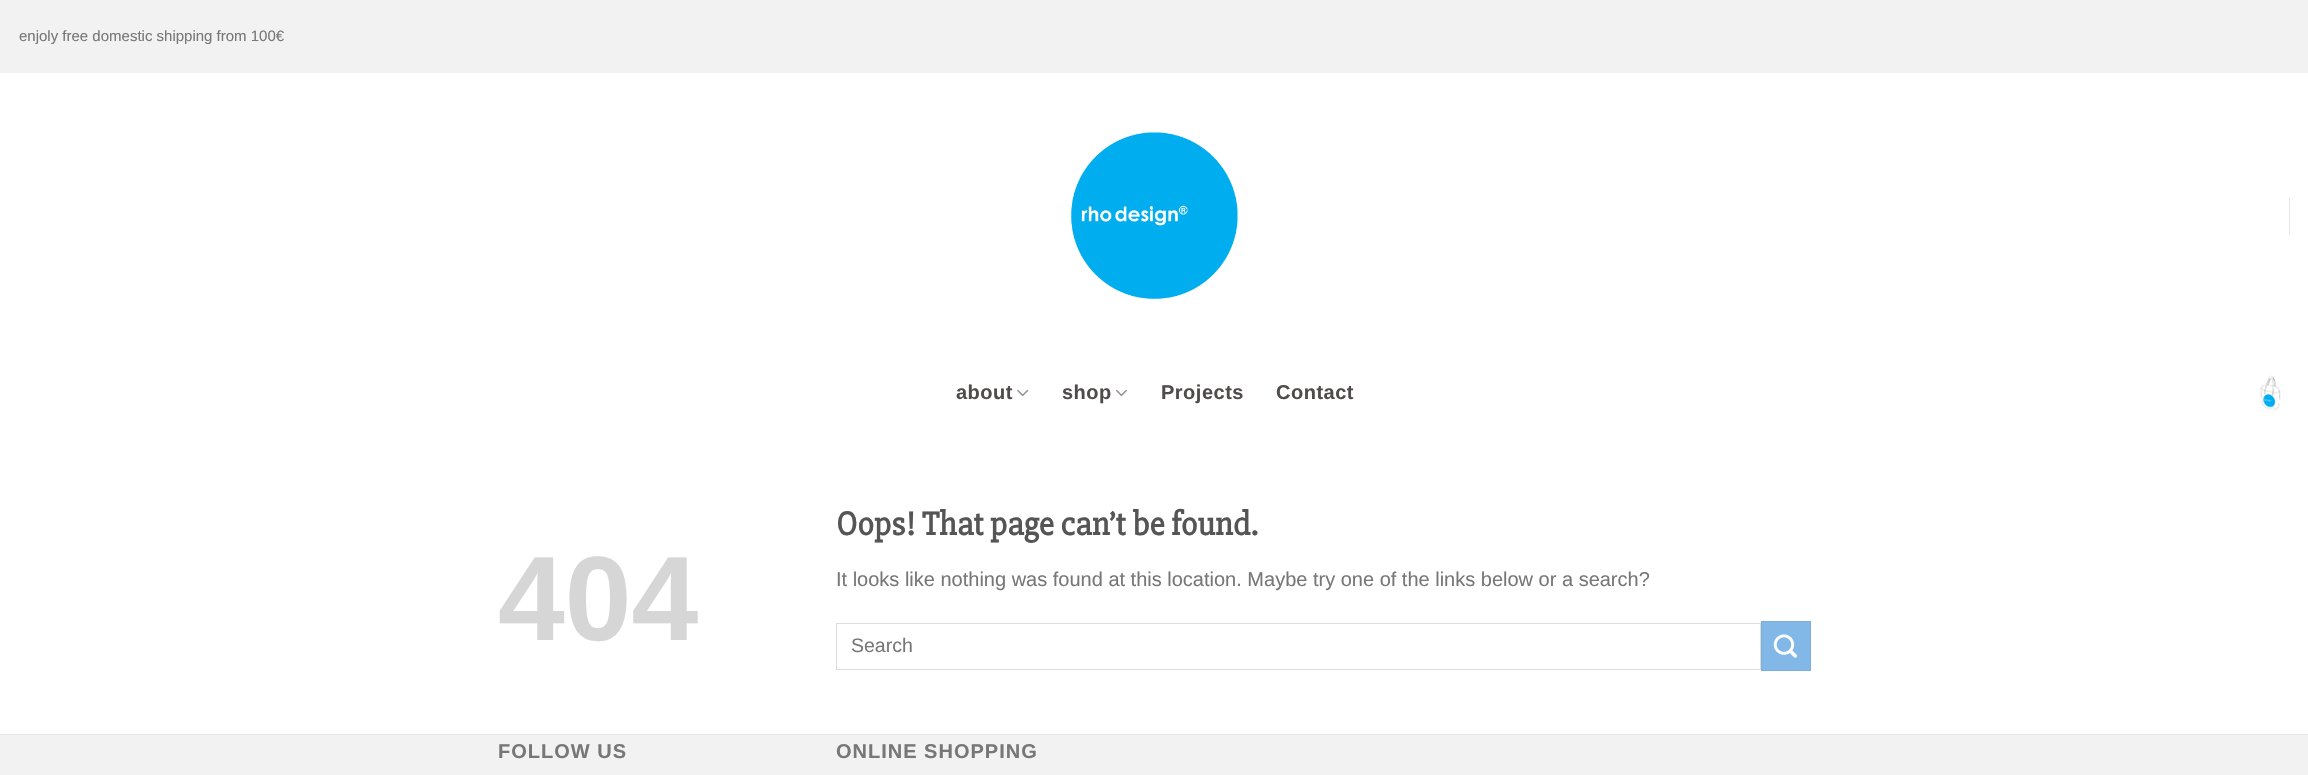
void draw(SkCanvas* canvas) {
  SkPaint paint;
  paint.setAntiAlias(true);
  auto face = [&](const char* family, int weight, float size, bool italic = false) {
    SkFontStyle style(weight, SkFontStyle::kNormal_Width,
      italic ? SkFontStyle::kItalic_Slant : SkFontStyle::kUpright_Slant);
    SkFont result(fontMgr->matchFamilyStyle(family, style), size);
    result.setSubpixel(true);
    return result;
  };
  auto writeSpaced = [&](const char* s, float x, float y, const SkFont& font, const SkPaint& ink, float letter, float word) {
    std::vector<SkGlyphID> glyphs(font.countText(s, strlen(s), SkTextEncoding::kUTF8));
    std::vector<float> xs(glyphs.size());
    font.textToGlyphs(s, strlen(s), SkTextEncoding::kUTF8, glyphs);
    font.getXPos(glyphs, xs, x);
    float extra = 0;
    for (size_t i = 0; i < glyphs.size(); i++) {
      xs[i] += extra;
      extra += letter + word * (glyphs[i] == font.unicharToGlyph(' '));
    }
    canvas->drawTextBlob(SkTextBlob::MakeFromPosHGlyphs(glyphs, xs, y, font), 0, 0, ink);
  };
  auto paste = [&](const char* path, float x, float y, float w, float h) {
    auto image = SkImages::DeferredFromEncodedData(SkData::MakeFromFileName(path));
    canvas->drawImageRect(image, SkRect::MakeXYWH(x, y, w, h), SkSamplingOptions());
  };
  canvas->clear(0xffffffff);
  paint.setColor(0xfff2f2f2);
  canvas->drawRect(SkRect::MakeXYWH(0, 0, 2308, 73), paint);
  paste("img/1.png", 1071, 132, 167, 167);
  paint.setColor(0xffe6e6e6);
  canvas->drawRect(SkRect::MakeXYWH(2289, 198, 1, 37), paint);
  paste("img/2.png", 1017, 389, 12, 8);
  paste("img/3.png", 1115, 389, 12, 8);
  paste("img/4.png", 2260, 375, 21, 35);
  paint.setStroke(true);
  paint.setStrokeWidth(1);
  paint.setColor(0xffdddddd);
  canvas->drawRect(SkRect::MakeXYWH(836.5f, 623.5f, 924, 46), paint);
  paint.setStroke(false);
  paint.setColor(0xff81b8e8);
  canvas->drawRect(SkRect::MakeXYWH(1761.5f, 621.5f, 49, 49), paint);
  paint.setStroke(true);
  paint.setColor(0xff7bafdc);
  canvas->drawRect(SkRect::MakeXYWH(1761.5f, 621.5f, 49, 49), paint);
  paste("img/5.png", 1773, 634, 24, 24);
  paint.setStroke(false);
  paint.setColor(0xfff2f2f2);
  canvas->drawRect(SkRect::MakeXYWH(0, 735, 2308, 40), paint);
  paint.setColor(0xffe6e6e6);
  canvas->drawRect(SkRect::MakeXYWH(0, 734, 2308, 1), paint);
  auto f0 = face("Liberation Sans", 400, 15);
  paint.setColor(0xff777777);
  canvas->drawString("enjoly free domestic shipping from 100€", 19, 41, f0, paint);
  auto f1 = face("Liberation Sans", 700, 20);
  paint.setColor(0xff514c4c);
  {
    const struct { const char* s; float x, y; } items[] = {
      {"about", 956, 399},
      {"shop", 1062, 399},
      {"Projects", 1161, 399},
      {"Contact", 1276, 399},
    };
    for (auto [s, x, y] : items) {
      writeSpaced(s, x, y, f1, paint, 0.5f, 0);
    }
  }
  auto f2 = face("Liberation Sans", 700, 120);
  paint.setColor(0xffd6d6d6);
  canvas->drawString("404", 498, 640, f2, paint);
  auto f3 = face("Slabo 27px", 700, 34);
  paint.setColor(0xff555555);
  canvas->drawString("Oops! That page can’t be found.", 836, 535, f3, paint);
  auto f4 = face("Liberation Sans", 400, 20);
  paint.setColor(0xff777777);
  canvas->drawString("It looks like nothing was found at this location. Maybe try one of the links below or a search?", 836, 586, f4, paint);
  auto f5 = face("Liberation Sans", 400, 19.5f);
  canvas->drawString("Search", 851, 652, f5, paint);
  writeSpaced("FOLLOW US", 498, 758, f1, paint, 1, 0);
  writeSpaced("ONLINE SHOPPING", 836, 758, f1, paint, 1, 0);
}
